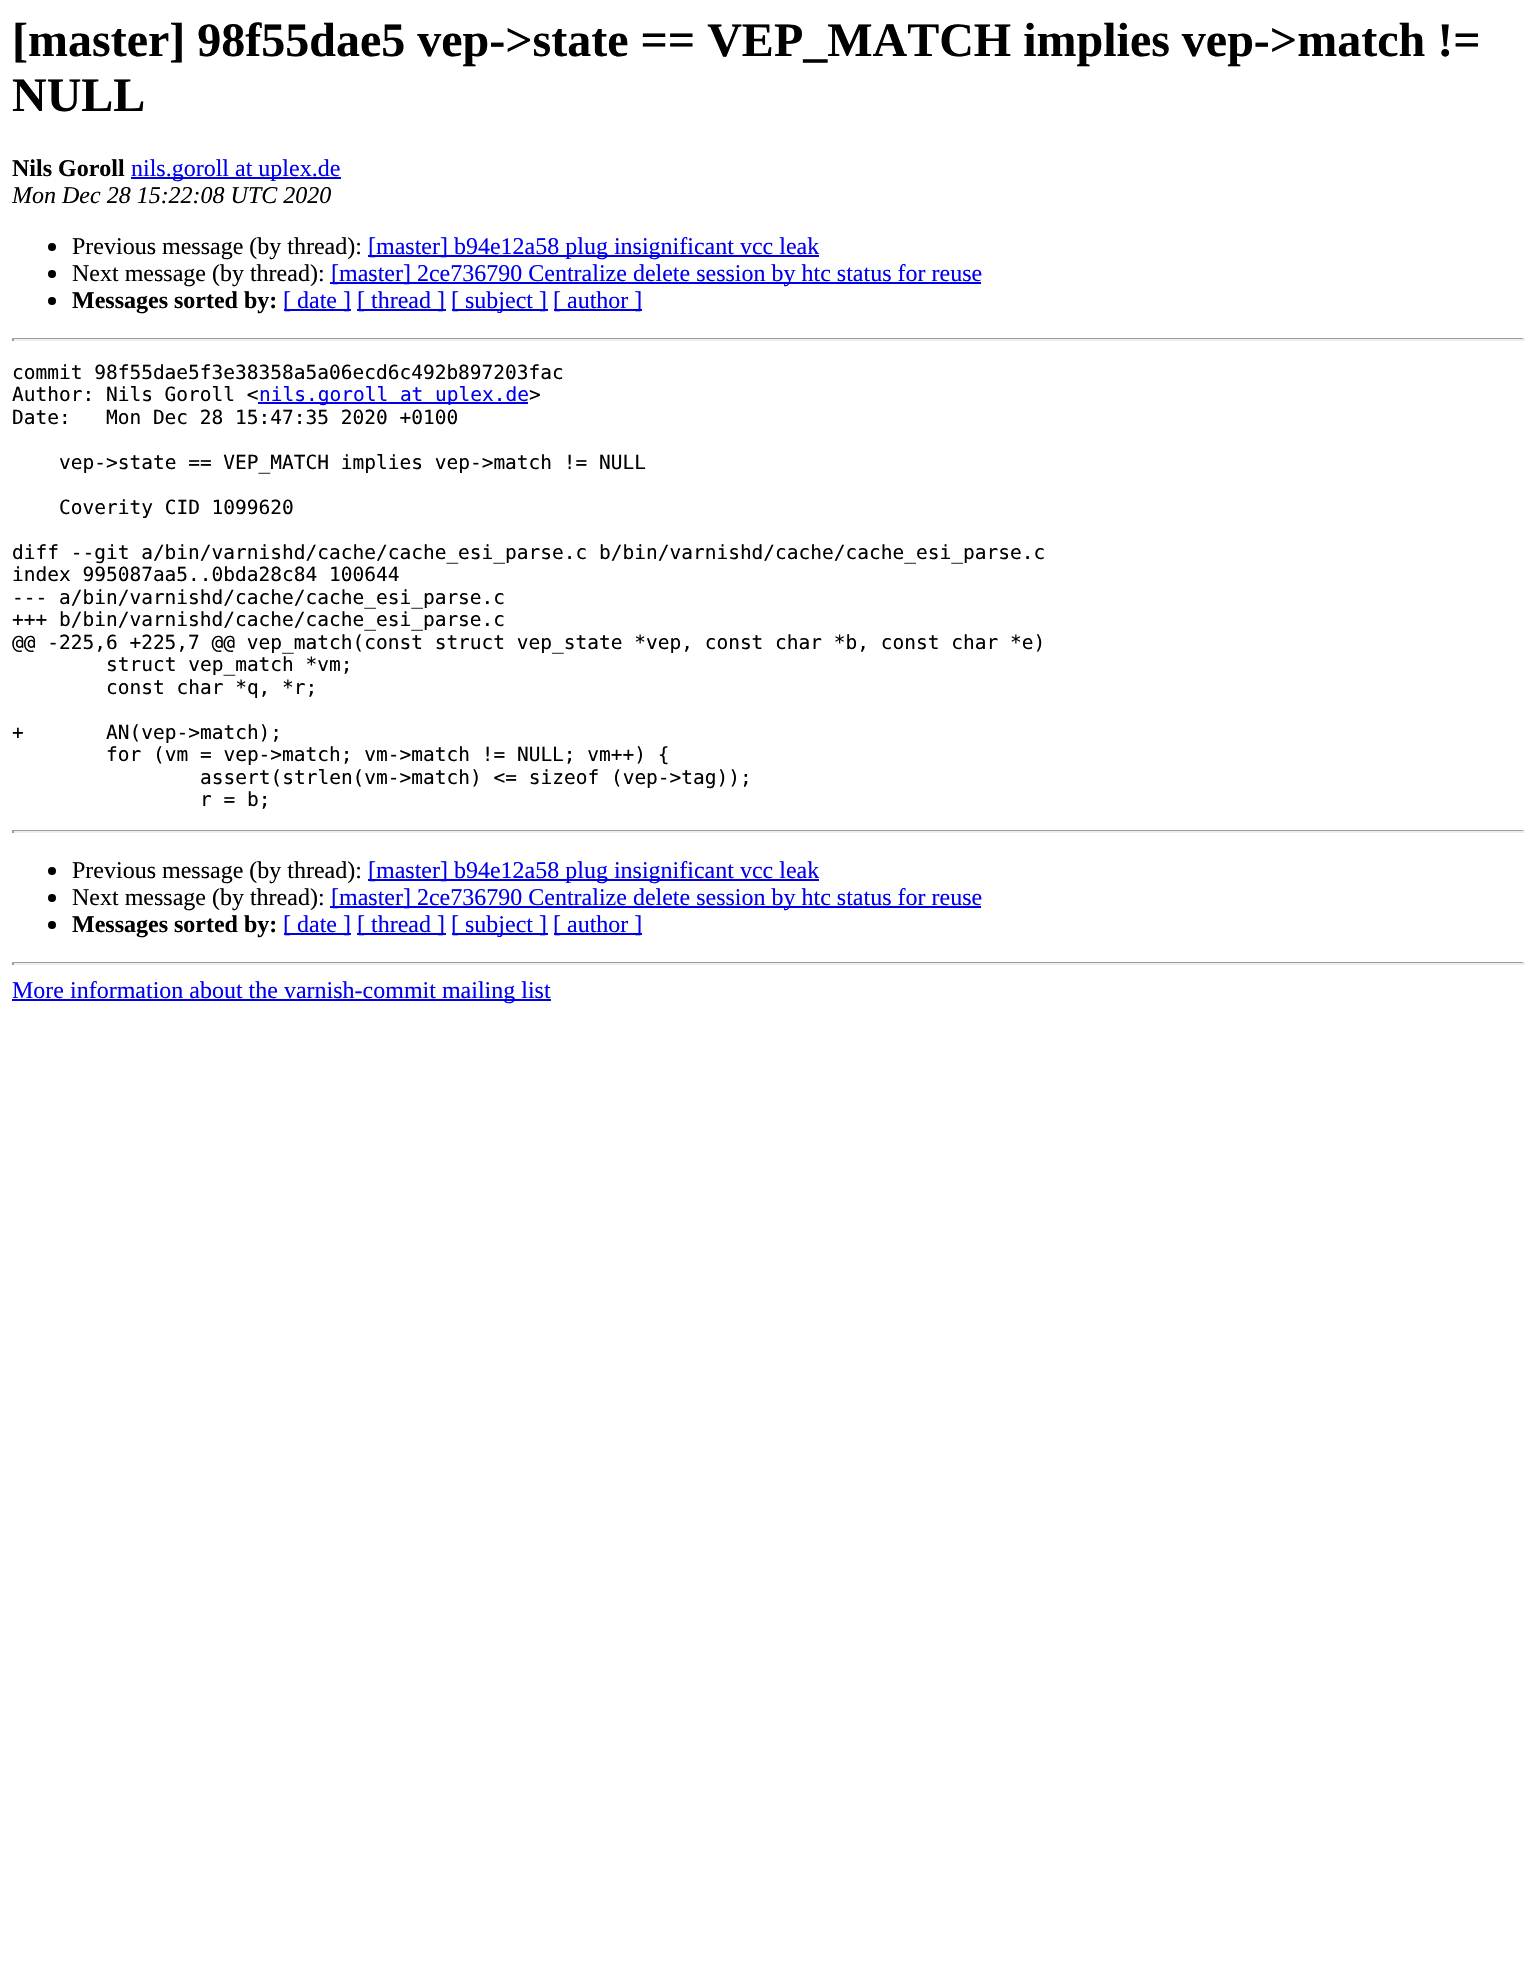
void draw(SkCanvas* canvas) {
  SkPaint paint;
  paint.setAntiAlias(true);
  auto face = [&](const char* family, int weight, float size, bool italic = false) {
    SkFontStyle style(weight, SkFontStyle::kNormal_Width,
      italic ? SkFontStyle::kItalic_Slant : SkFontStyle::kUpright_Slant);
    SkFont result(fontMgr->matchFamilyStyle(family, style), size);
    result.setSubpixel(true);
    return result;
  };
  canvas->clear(0xffffffff);
  paint.setColor(0xff0000ee);
  canvas->drawRect(SkRect::MakeXYWH(131, 177, 210, 2), paint);
  paint.setColor(0xff000000);
  canvas->drawCircle(52, 247, 4, paint);
  paint.setColor(0xff0000ee);
  canvas->drawRect(SkRect::MakeXYWH(368, 255, 451, 2), paint);
  paint.setColor(0xff000000);
  canvas->drawCircle(52, 274, 4, paint);
  paint.setColor(0xff0000ee);
  canvas->drawRect(SkRect::MakeXYWH(330, 282, 651, 2), paint);
  paint.setColor(0xff000000);
  canvas->drawCircle(52, 301, 4, paint);
  {
    const struct { float x, y, w, h; SkColor color; } items[] = {
      {284, 309, 67, 2, 0xff0000ee},
      {357, 309, 89, 2, 0xff0000ee},
      {452, 309, 96, 2, 0xff0000ee},
      {554, 309, 88, 2, 0xff0000ee},
      {12, 338, 1512, 1, 0xff9f9f9f},
      {1523, 338, 2, 3, 0xffeeeeee},
      {12, 339, 1512, 2, 0xffeeeeee},
      {12, 338, 2, 3, 0xff9f9f9f},
      {258, 402, 270, 2, 0xff0000ee},
      {12, 830, 1512, 1, 0xff9f9f9f},
      {1523, 830, 2, 3, 0xffeeeeee},
      {12, 831, 1512, 2, 0xffeeeeee},
      {12, 830, 2, 3, 0xff9f9f9f},
    };
    for (auto [x, y, w, h, color] : items) {
      paint.setColor(color);
      canvas->drawRect(SkRect::MakeXYWH(x, y, w, h), paint);
    }
  }
  paint.setColor(0xff000000);
  canvas->drawCircle(52, 871, 4, paint);
  paint.setColor(0xff0000ee);
  canvas->drawRect(SkRect::MakeXYWH(368, 879, 451, 2), paint);
  paint.setColor(0xff000000);
  canvas->drawCircle(52, 898, 4, paint);
  paint.setColor(0xff0000ee);
  canvas->drawRect(SkRect::MakeXYWH(330, 906, 651, 2), paint);
  paint.setColor(0xff000000);
  canvas->drawCircle(52, 925, 4, paint);
  {
    const struct { float x, y, w, h; SkColor color; } items[] = {
      {284, 933, 67, 2, 0xff0000ee},
      {357, 933, 89, 2, 0xff0000ee},
      {452, 933, 96, 2, 0xff0000ee},
      {554, 933, 88, 2, 0xff0000ee},
      {12, 962, 1512, 1, 0xff9f9f9f},
      {1523, 962, 2, 3, 0xffeeeeee},
      {12, 963, 1512, 2, 0xffeeeeee},
      {12, 962, 2, 3, 0xff9f9f9f},
      {12, 999, 539, 2, 0xff0000ee},
    };
    for (auto [x, y, w, h, color] : items) {
      paint.setColor(color);
      canvas->drawRect(SkRect::MakeXYWH(x, y, w, h), paint);
    }
  }
  auto f0 = face("Liberation Serif", 700, 48);
  paint.setColor(0xff000000);
  canvas->drawString("[master] 98f55dae5 vep->state == VEP_MATCH implies vep->match !=", 12, 56, f0, paint);
  canvas->drawString("NULL", 12, 111, f0, paint);
  auto f1 = face("Liberation Serif", 700, 24);
  canvas->drawString("Nils Goroll", 12, 176, f1, paint);
  auto f2 = face("Liberation Serif", 400, 24);
  paint.setColor(0xff0000ee);
  canvas->drawString("nils.goroll at uplex.de", 131, 176, f2, paint);
  auto f3 = face("Liberation Serif", 400, 24, true);
  paint.setColor(0xff000000);
  canvas->drawString("Mon Dec 28 15:22:08 UTC 2020", 12, 203, f3, paint);
  canvas->drawString("Previous message (by thread):", 72, 254, f2, paint);
  paint.setColor(0xff0000ee);
  canvas->drawString("[master] b94e12a58 plug insignificant vcc leak", 368, 254, f2, paint);
  paint.setColor(0xff000000);
  canvas->drawString("Next message (by thread):", 72, 281, f2, paint);
  paint.setColor(0xff0000ee);
  canvas->drawString("[master] 2ce736790 Centralize delete session by htc status for reuse", 331, 281, f2, paint);
  paint.setColor(0xff000000);
  canvas->drawString("Messages sorted by:", 72, 308, f1, paint);
  paint.setColor(0xff0000ee);
  {
    const struct { const char* s; float x, y; } items[] = {
      {"[ date ]", 283, 308},
      {"[ thread ]", 357, 308},
      {"[ subject ]", 451, 308},
      {"[ author ]", 553, 308},
    };
    for (auto [s, x, y] : items) {
      canvas->drawString(s, x, y, f2, paint);
    }
  }
  auto f4 = face("DejaVu Sans Mono", 400, 19.5f);
  paint.setColor(0xff000000);
  canvas->drawString("commit 98f55dae5f3e38358a5a06ecd6c492b897203fac", 12, 379, f4, paint);
  canvas->drawString("Author: Nils Goroll <", 12, 401, f4, paint);
  paint.setColor(0xff0000ee);
  canvas->drawString("nils.goroll at uplex.de", 259, 401, f4, paint);
  paint.setColor(0xff000000);
  {
    const struct { const char* s; float x, y; } items[] = {
      {">", 529, 401},
      {"Date:   Mon Dec 28 15:47:35 2020 +0100", 12, 424},
      {"vep->state == VEP_MATCH implies vep->match != NULL", 59, 469},
      {"Coverity CID 1099620", 59, 514},
      {"diff --git a/bin/varnishd/cache/cache_esi_parse.c b/bin/varnishd/cache/cache_esi_parse.c", 12, 559},
      {"index 995087aa5..0bda28c84 100644", 12, 581},
      {"--- a/bin/varnishd/cache/cache_esi_parse.c", 12, 604},
      {"+++ b/bin/varnishd/cache/cache_esi_parse.c", 12, 626},
      {"@@ -225,6 +225,7 @@ vep_match(const struct vep_state *vep, const char *b, const char *e)", 12, 649},
      {"struct vep_match *vm;", 106, 671},
      {"const char *q, *r;", 106, 694},
      {"+", 12, 739},
      {"AN(vep->match);", 106, 739},
      {"for (vm = vep->match; vm->match != NULL; vm++) {", 106, 761},
      {"assert(strlen(vm->match) <= sizeof (vep->tag));", 200, 784},
      {"r = b;", 200, 806},
    };
    for (auto [s, x, y] : items) {
      canvas->drawString(s, x, y, f4, paint);
    }
  }
  canvas->drawString("Previous message (by thread):", 72, 878, f2, paint);
  paint.setColor(0xff0000ee);
  canvas->drawString("[master] b94e12a58 plug insignificant vcc leak", 368, 878, f2, paint);
  paint.setColor(0xff000000);
  canvas->drawString("Next message (by thread):", 72, 905, f2, paint);
  paint.setColor(0xff0000ee);
  canvas->drawString("[master] 2ce736790 Centralize delete session by htc status for reuse", 331, 905, f2, paint);
  paint.setColor(0xff000000);
  canvas->drawString("Messages sorted by:", 72, 932, f1, paint);
  paint.setColor(0xff0000ee);
  {
    const struct { const char* s; float x, y; } items[] = {
      {"[ date ]", 283, 932},
      {"[ thread ]", 357, 932},
      {"[ subject ]", 451, 932},
      {"[ author ]", 553, 932},
      {"More information about the varnish-commit mailing list", 12, 998},
    };
    for (auto [s, x, y] : items) {
      canvas->drawString(s, x, y, f2, paint);
    }
  }
}
